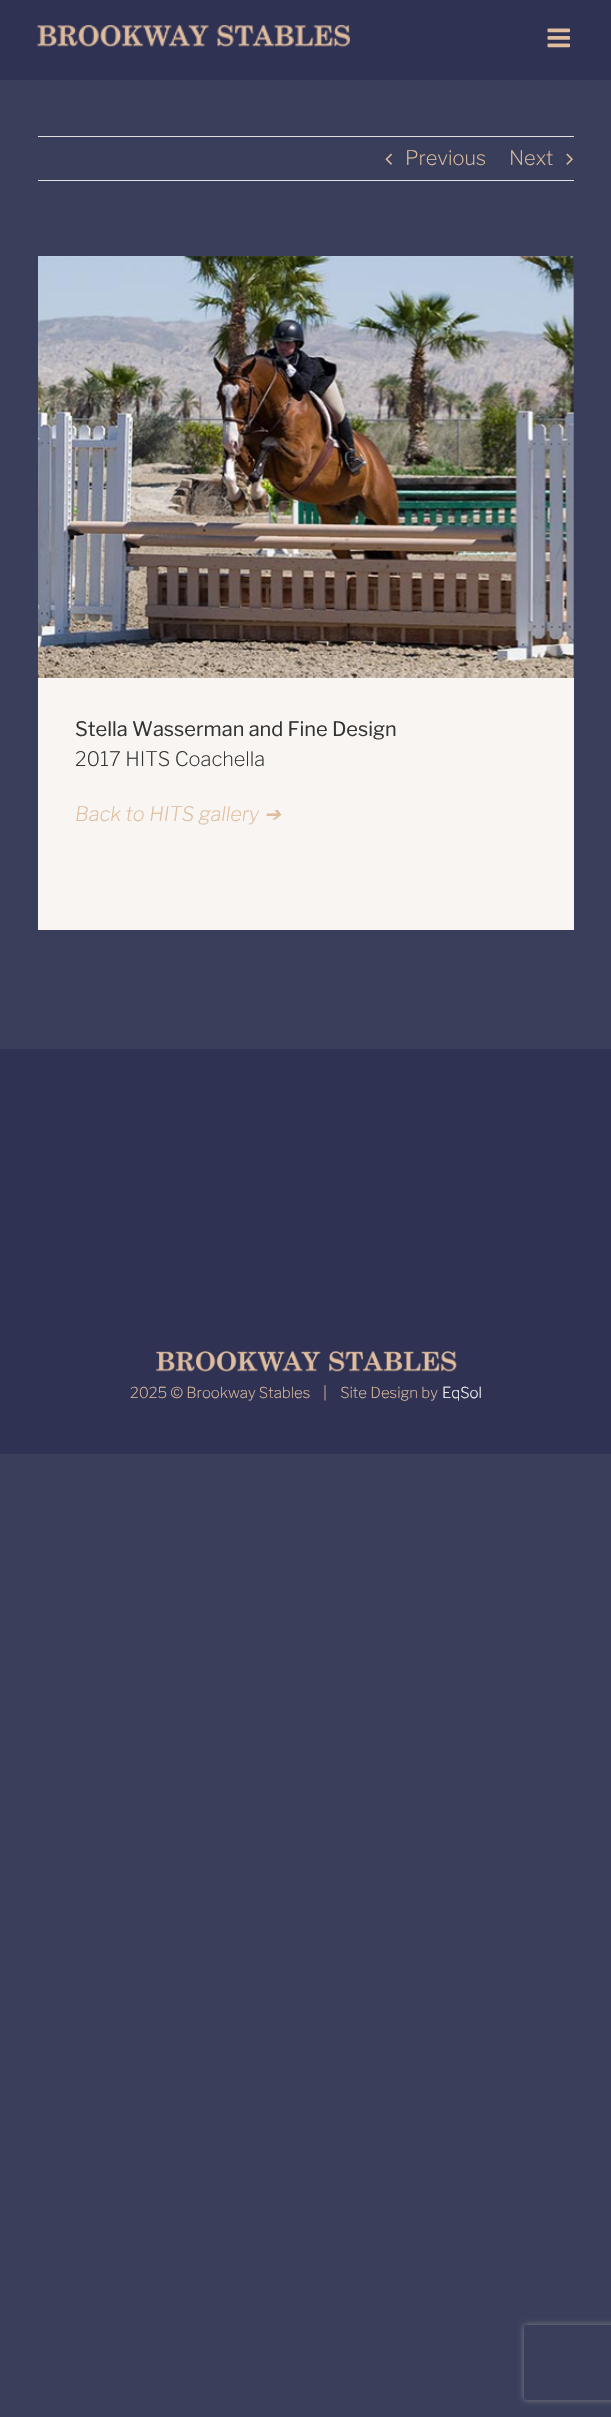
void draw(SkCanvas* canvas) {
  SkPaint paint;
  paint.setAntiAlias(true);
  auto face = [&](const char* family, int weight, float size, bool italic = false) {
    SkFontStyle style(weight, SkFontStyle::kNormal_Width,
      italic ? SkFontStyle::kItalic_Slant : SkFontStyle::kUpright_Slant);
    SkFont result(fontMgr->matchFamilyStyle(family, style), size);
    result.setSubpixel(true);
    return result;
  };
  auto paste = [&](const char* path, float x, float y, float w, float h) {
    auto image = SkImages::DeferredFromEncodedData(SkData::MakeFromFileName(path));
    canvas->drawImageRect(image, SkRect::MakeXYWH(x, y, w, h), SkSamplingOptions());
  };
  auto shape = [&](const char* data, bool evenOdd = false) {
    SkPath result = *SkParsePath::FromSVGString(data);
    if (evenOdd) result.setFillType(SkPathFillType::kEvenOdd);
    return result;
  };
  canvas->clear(0xff393f5b);
  paint.setColor(0xff303254);
  canvas->drawRect(SkRect::MakeXYWH(0, 0, 611, 80), paint);
  paste("img/1.png", 37, 25, 313, 22);
  paste("img/2.png", 547, 28, 23, 20);
  paint.setColor(0xffe0dede);
  canvas->drawRect(SkRect::MakeXYWH(38, 136, 536, 1), paint);
  canvas->drawRect(SkRect::MakeXYWH(38, 180, 536, 1), paint);
  paste("img/3.png", 385, 153, 7, 12);
  paste("img/4.png", 566, 153, 7, 12);
  paste("img/5.png", 38, 256, 536, 422);
  paint.setColor(0xfff9f5f2);
  canvas->drawRect(SkRect::MakeXYWH(38, 678, 536, 252), paint);
  paint.setColor(0xff303254);
  canvas->drawRect(SkRect::MakeXYWH(0, 1049, 611, 405), paint);
  paste("img/6.png", 156, 1351, 301, 21);
  canvas->save();
  canvas->clipPath(shape("M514 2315H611V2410H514ZM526.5 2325H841.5C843 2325 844 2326 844 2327.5V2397.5C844 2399 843 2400 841.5 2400H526.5C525 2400 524 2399 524 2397.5V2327.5C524 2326 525 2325 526.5 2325Z", true), true);
  paint.setColor(0xff808080);
  paint.setMaskFilter(SkMaskFilter::MakeBlur(kNormal_SkBlurStyle, 3));
  canvas->drawRoundRect(SkRect::MakeXYWH(524, 2325, 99, 75), 2.5f, 2.5f, paint);
  paint.setMaskFilter(nullptr);
  canvas->restore();
  auto f0 = face("Libre Franklin", 200, 20);
  paint.setColor(0xffdfbd9e);
  canvas->drawString("Previous", 405, 165, f0, paint);
  canvas->drawString("Next", 509, 165, f0, paint);
  auto f1 = face("Libre Franklin", 400, 20);
  paint.setColor(0xff333333);
  canvas->drawString("Stella Wasserman and Fine Design", 75, 736, f1, paint);
  canvas->drawString("2017 HITS Coachella", 75, 766, f0, paint);
  auto f2 = face("Libre Franklin", 200, 20, true);
  paint.setColor(0xffdfbd9e);
  canvas->drawString("Back to HITS gallery", 75, 821, f2, paint);
  auto f3 = face("DejaVu Sans", 400, 20, true);
  canvas->drawString("➔", 264, 821, f3, paint);
  auto f4 = face("Libre Franklin", 200, 15);
  canvas->drawString("2025 © Brookway Stables", 130, 1398, f4, paint);
  canvas->drawString("|    Site Design by", 323, 1398, f4, paint);
  paint.setColor(0xffffffff);
  canvas->drawString("EqSol", 442, 1398, f4, paint);
}
